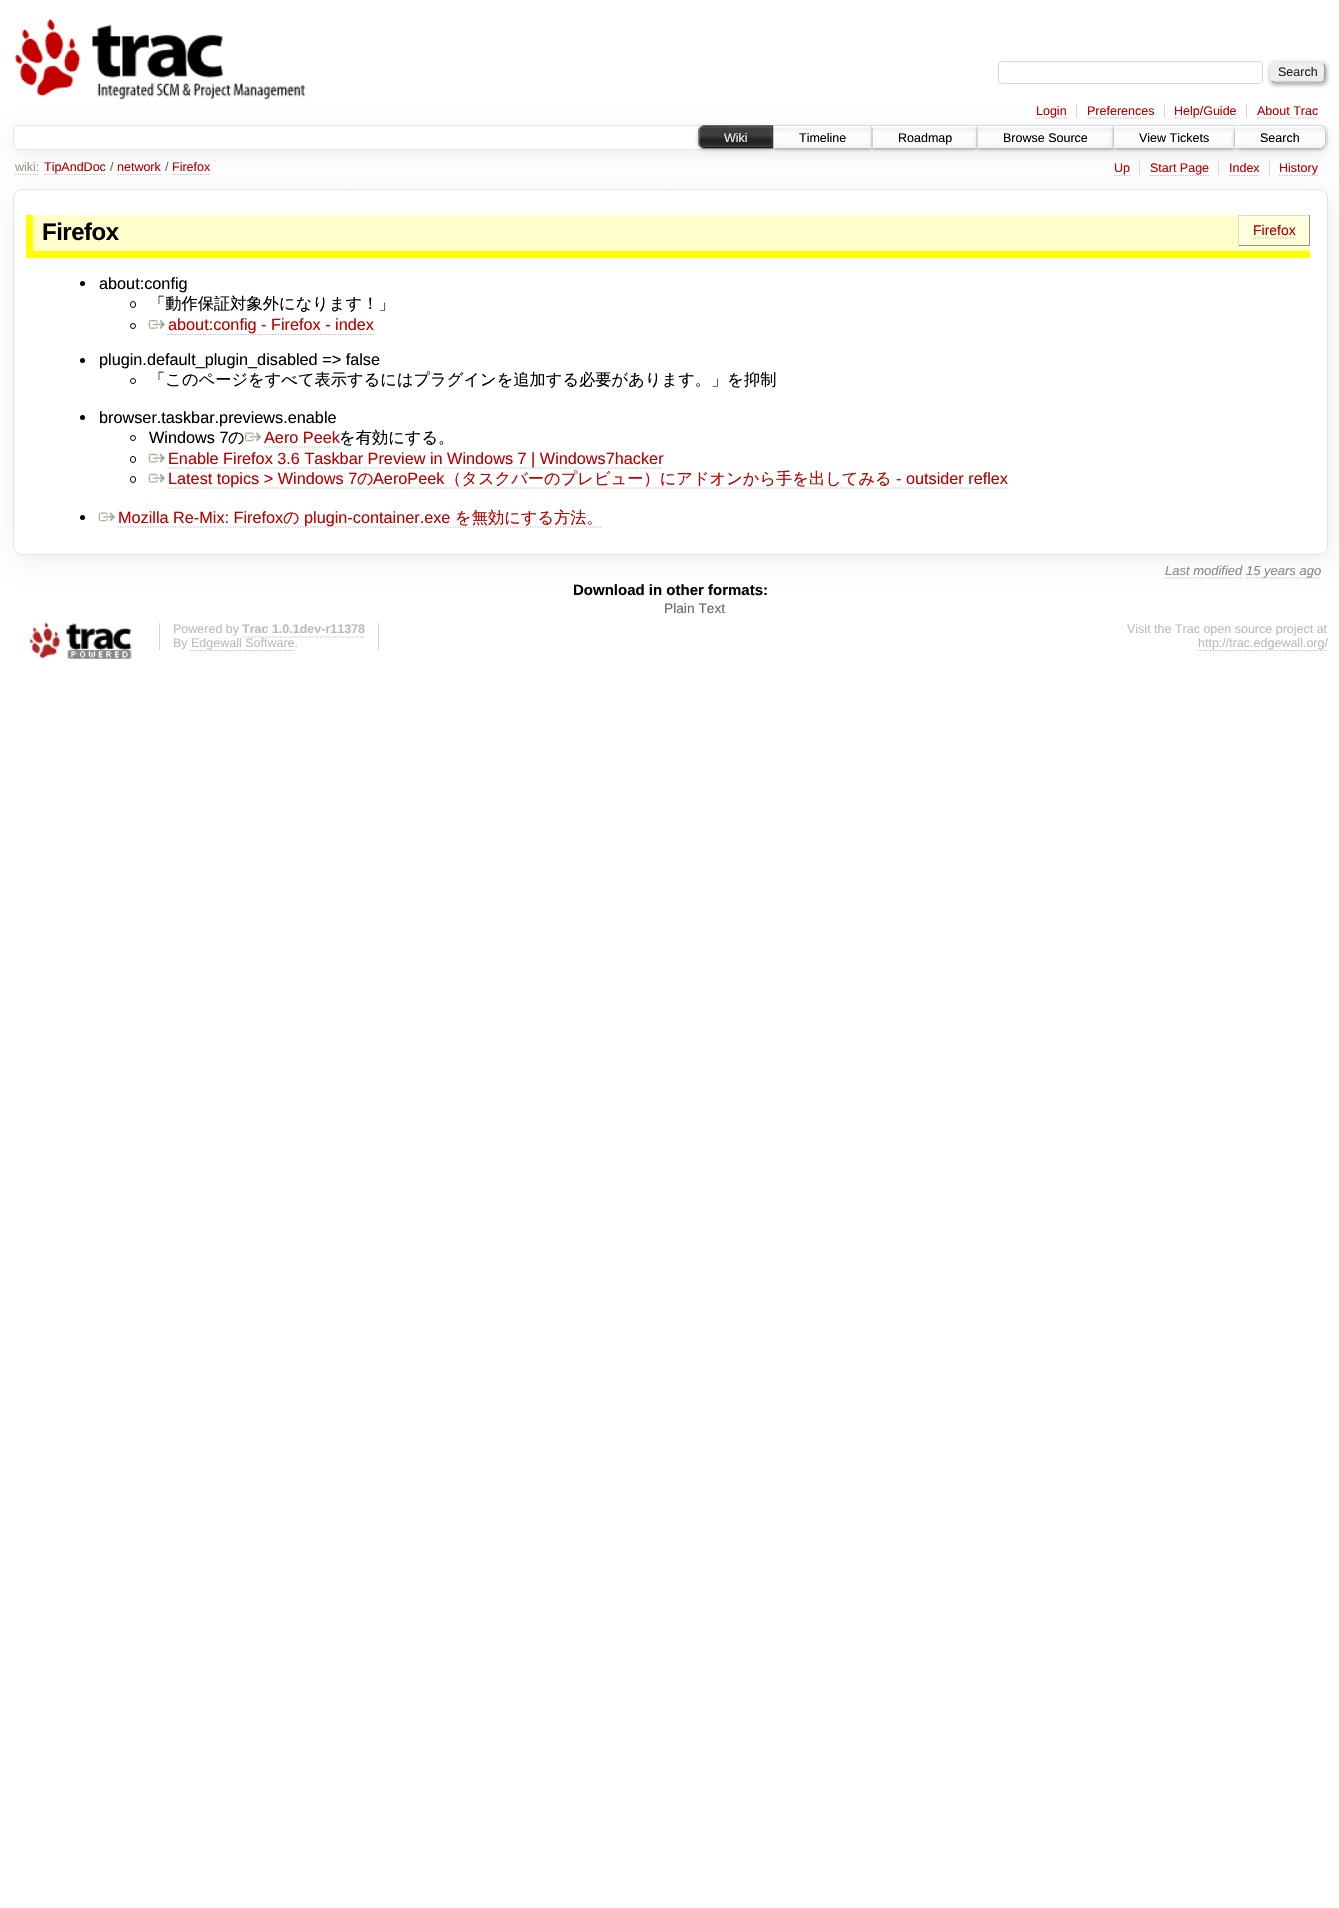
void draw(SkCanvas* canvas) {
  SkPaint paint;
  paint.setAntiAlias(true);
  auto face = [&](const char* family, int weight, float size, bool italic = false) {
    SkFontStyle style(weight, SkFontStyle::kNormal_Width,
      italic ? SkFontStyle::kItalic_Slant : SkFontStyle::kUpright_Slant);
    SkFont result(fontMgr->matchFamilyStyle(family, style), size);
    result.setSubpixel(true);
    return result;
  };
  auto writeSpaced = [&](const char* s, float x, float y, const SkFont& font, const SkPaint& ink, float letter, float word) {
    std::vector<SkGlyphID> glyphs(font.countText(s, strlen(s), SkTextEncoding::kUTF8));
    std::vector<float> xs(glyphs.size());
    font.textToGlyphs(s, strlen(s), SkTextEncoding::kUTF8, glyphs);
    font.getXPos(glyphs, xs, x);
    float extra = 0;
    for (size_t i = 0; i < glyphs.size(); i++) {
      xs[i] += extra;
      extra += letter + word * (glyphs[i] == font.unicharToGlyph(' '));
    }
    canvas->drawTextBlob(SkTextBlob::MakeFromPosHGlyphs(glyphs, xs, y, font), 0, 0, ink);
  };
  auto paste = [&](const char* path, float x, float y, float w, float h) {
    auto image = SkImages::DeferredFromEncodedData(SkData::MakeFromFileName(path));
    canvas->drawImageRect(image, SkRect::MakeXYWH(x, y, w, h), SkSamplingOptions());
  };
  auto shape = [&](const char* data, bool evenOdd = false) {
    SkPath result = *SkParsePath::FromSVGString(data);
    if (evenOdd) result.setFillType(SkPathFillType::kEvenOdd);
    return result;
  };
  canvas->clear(0xffffffff);
  paste("img/1.png", 14, 18, 292, 81);
  paint.setStroke(true);
  paint.setStrokeWidth(1);
  paint.setColor(0xffd7d7d7);
  canvas->drawRoundRect(SkRect::MakeXYWH(998.5f, 61.5f, 264, 22), 3.5f, 3.5f, paint);
  paint.setStroke(false);
  paint.setColor(0xff888888);
  paint.setMaskFilter(SkMaskFilter::MakeBlur(kNormal_SkBlurStyle, 2.5f));
  canvas->drawRoundRect(SkRect::MakeXYWH(1271, 64, 55, 20), 4, 4, paint);
  paint.setMaskFilter(nullptr);
  paint.setColor(0xffeeeeee);
  canvas->drawRoundRect(SkRect::MakeXYWH(1270, 63, 55, 20), 4, 4, paint);
  paint.setStroke(true);
  paint.setStrokeWidth(1.2f);
  paint.setColor(0xff9f9f9f);
  canvas->drawPath(shape("M1323.5 64C1325.5 66 1324.5 70 1324.5 72.5C1324.5 83.5 1325 82 1313.5 82H1281.5C1281 82 1273.5 83 1271.5 81"), paint);
  paint.setColor(0xffeeeeee);
  canvas->drawPath(shape("M1271.5 81C1269.5 79 1270.5 75 1270.5 72.5C1270.5 61.5 1270 63 1281.5 63H1313.5C1314 63 1321.5 62 1323.5 64"), paint);
  canvas->save();
  canvas->clipPath(shape("M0 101H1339V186H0ZM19 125H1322C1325.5 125 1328 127.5 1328 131V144C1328 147.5 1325.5 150 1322 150H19C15.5 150 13 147.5 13 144V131C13 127.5 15.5 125 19 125Z", true), true);
  paint.setStroke(false);
  paint.setMaskFilter(SkMaskFilter::MakeBlur(kNormal_SkBlurStyle, 9.5f));
  canvas->drawRoundRect(SkRect::MakeXYWH(13, 131, 1315, 25), 6, 6, paint);
  paint.setMaskFilter(nullptr);
  canvas->restore();
  paint.setColor(0xffd7d7d7);
  canvas->drawRect(SkRect::MakeXYWH(1076, 104, 1, 14), paint);
  paint.setStroke(true);
  paint.setColor(0xffbbbbbb);
  paint.setPathEffect(SkDashPathEffect::Make({{1.25f, 1.25f}}, 0));
  canvas->drawPath(shape("M1036 118H1067.5"), paint);
  paint.setPathEffect(nullptr);
  paint.setStroke(false);
  paint.setColor(0xffd7d7d7);
  canvas->drawRect(SkRect::MakeXYWH(1164, 104, 1, 14), paint);
  paint.setStroke(true);
  paint.setColor(0xffbbbbbb);
  paint.setPathEffect(SkDashPathEffect::Make({{1.25f, 1.25f}}, 0));
  canvas->drawPath(shape("M1087.5 118H1155"), paint);
  paint.setPathEffect(nullptr);
  paint.setStroke(false);
  paint.setColor(0xffd7d7d7);
  canvas->drawRect(SkRect::MakeXYWH(1246, 104, 1, 14), paint);
  paint.setStroke(true);
  paint.setColor(0xffbbbbbb);
  paint.setPathEffect(SkDashPathEffect::Make({{1.25f, 1.25f}}, 0));
  canvas->drawPath(shape("M1175 118H1237.5"), paint);
  paint.setPathEffect(nullptr);
  paint.setPathEffect(SkDashPathEffect::Make({{1.25f, 1.25f}}, 0));
  canvas->drawPath(shape("M1257.5 118H1319"), paint);
  paint.setPathEffect(nullptr);
  paint.setStrokeWidth(1);
  paint.setColor(0xffe4e4e4);
  canvas->drawRoundRect(SkRect::MakeXYWH(13.5f, 125.5f, 1314, 24), 5.5f, 5.5f, paint);
  paint.setStroke(false);
  paint.setColor(0xffffffff);
  canvas->drawPath(shape("M704 125H774V149H704C700.5 149 698 146.5 698 143V131C698 127.5 700.5 125 704 125Z"), paint);
  paste("img/2.png", 698, 127, 7, 21);
  paint.setStroke(true);
  paint.setColor(0xff666666);
  canvas->drawPath(shape("M704 125.5H773.5V148.5H704C701 148.5 698.5 146 698.5 143V131C698.5 128 701 125.5 704 125.5Z"), paint);
  paint.setStroke(false);
  paint.setColor(0xff999999);
  paint.setMaskFilter(SkMaskFilter::MakeBlur(kNormal_SkBlurStyle, 2));
  canvas->drawRoundRect(SkRect::MakeXYWH(699, 128, 74, 21), 6, 6, paint);
  paint.setMaskFilter(nullptr);
  paint.setColor(0xff000000);
  canvas->drawPath(shape("M705 126H773V148H705C701.5 148 699 145.5 699 142V132C699 128.5 701.5 126 705 126Z"), paint);
  paste("img/3.png", 698, 126, 75, 22);
  paint.setColor(0xffffffff);
  canvas->drawRect(SkRect::MakeXYWH(774, 128, 3, 20), paint);
  paste("img/4.png", 772, 127, 99, 21);
  paint.setStroke(true);
  paint.setColor(0xffe4e4e4);
  canvas->drawRect(SkRect::MakeXYWH(773.5f, 125.5f, 99, 23), paint);
  canvas->save();
  canvas->clipPath(shape("M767 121H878V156H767ZM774 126H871V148H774Z", true), true);
  paint.setStroke(false);
  paint.setColor(0xff999999);
  paint.setMaskFilter(SkMaskFilter::MakeBlur(kNormal_SkBlurStyle, 2));
  canvas->drawRect(SkRect::MakeXYWH(774, 128, 97, 21), paint);
  paint.setMaskFilter(nullptr);
  canvas->restore();
  paint.setColor(0xffffffff);
  canvas->drawRect(SkRect::MakeXYWH(872, 126, 3, 22), paint);
  paste("img/5.png", 872, 127, 104, 21);
  paint.setStroke(true);
  paint.setColor(0xffe4e4e4);
  canvas->drawRect(SkRect::MakeXYWH(871.5f, 125.5f, 106, 23), paint);
  canvas->save();
  canvas->clipPath(shape("M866 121H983V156H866ZM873 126H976V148H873Z", true), true);
  paint.setStroke(false);
  paint.setColor(0xff999999);
  paint.setMaskFilter(SkMaskFilter::MakeBlur(kNormal_SkBlurStyle, 2));
  canvas->drawRect(SkRect::MakeXYWH(873, 128, 103, 21), paint);
  paint.setMaskFilter(nullptr);
  canvas->restore();
  paint.setColor(0xffffffff);
  canvas->drawRect(SkRect::MakeXYWH(977, 126, 3, 22), paint);
  paste("img/6.png", 977, 127, 136, 21);
  paint.setStroke(true);
  paint.setColor(0xffe4e4e4);
  canvas->drawRect(SkRect::MakeXYWH(976.5f, 125.5f, 137, 23), paint);
  canvas->save();
  canvas->clipPath(shape("M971 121H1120V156H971ZM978 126H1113V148H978Z", true), true);
  paint.setStroke(false);
  paint.setColor(0xff999999);
  paint.setMaskFilter(SkMaskFilter::MakeBlur(kNormal_SkBlurStyle, 2));
  canvas->drawRect(SkRect::MakeXYWH(978, 128, 135, 21), paint);
  paint.setMaskFilter(nullptr);
  canvas->restore();
  paint.setColor(0xffffffff);
  canvas->drawRect(SkRect::MakeXYWH(1114, 126, 3, 22), paint);
  paste("img/7.png", 1112, 127, 122, 21);
  paint.setStroke(true);
  paint.setColor(0xffe4e4e4);
  canvas->drawRect(SkRect::MakeXYWH(1113.5f, 125.5f, 121, 23), paint);
  canvas->save();
  canvas->clipPath(shape("M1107 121H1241V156H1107ZM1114 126H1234V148H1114Z", true), true);
  paint.setStroke(false);
  paint.setColor(0xff999999);
  paint.setMaskFilter(SkMaskFilter::MakeBlur(kNormal_SkBlurStyle, 2));
  canvas->drawRect(SkRect::MakeXYWH(1114, 128, 120, 21), paint);
  paint.setMaskFilter(nullptr);
  canvas->restore();
  paint.setColor(0xffffffff);
  canvas->drawPath(shape("M1234 125H1320C1323.5 125 1326 127.5 1326 131V143C1326 146.5 1323.5 149 1320 149H1234Z"), paint);
  paste("img/8.png", 1235, 127, 91, 21);
  paint.setStroke(true);
  paint.setColor(0xffe4e4e4);
  canvas->drawPath(shape("M1234.5 125.5H1320C1323 125.5 1325.5 128 1325.5 131V143C1325.5 146 1323 148.5 1320 148.5H1234.5Z"), paint);
  canvas->save();
  canvas->clipPath(shape("M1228 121H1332V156H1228ZM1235 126H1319C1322.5 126 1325 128.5 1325 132V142C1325 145.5 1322.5 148 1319 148H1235Z", true), true);
  paint.setStroke(false);
  paint.setColor(0xff999999);
  paint.setMaskFilter(SkMaskFilter::MakeBlur(kNormal_SkBlurStyle, 2));
  canvas->drawRoundRect(SkRect::MakeXYWH(1235, 128, 90, 21), 6, 6, paint);
  paint.setMaskFilter(nullptr);
  canvas->restore();
  paint.setStroke(true);
  paint.setStrokeWidth(1.2f);
  paint.setColor(0xffbbbbbb);
  paint.setPathEffect(SkDashPathEffect::Make({{1.25f, 1.25f}}, 0));
  canvas->drawPath(shape("M15 174.5H39"), paint);
  paint.setPathEffect(nullptr);
  paint.setPathEffect(SkDashPathEffect::Make({{1.25f, 1.25f}}, 0));
  canvas->drawPath(shape("M44 174.5H106"), paint);
  paint.setPathEffect(nullptr);
  paint.setPathEffect(SkDashPathEffect::Make({{1.25f, 1.25f}}, 0));
  canvas->drawPath(shape("M117.5 174.5H161"), paint);
  paint.setPathEffect(nullptr);
  paint.setPathEffect(SkDashPathEffect::Make({{1.25f, 1.25f}}, 0));
  canvas->drawPath(shape("M172.5 174.5H210"), paint);
  paint.setPathEffect(nullptr);
  paint.setStroke(false);
  paint.setColor(0xffd7d7d7);
  canvas->drawRect(SkRect::MakeXYWH(1139, 161, 1, 14), paint);
  paint.setStroke(true);
  paint.setColor(0xffbbbbbb);
  paint.setPathEffect(SkDashPathEffect::Make({{1.25f, 1.25f}}, 0));
  canvas->drawPath(shape("M1114 175.5H1130"), paint);
  paint.setPathEffect(nullptr);
  paint.setStroke(false);
  paint.setColor(0xffd7d7d7);
  canvas->drawRect(SkRect::MakeXYWH(1218, 161, 1, 14), paint);
  paint.setStroke(true);
  paint.setColor(0xffbbbbbb);
  paint.setPathEffect(SkDashPathEffect::Make({{1.25f, 1.25f}}, 0));
  canvas->drawPath(shape("M1150 175.5H1209"), paint);
  paint.setPathEffect(nullptr);
  paint.setStroke(false);
  paint.setColor(0xffd7d7d7);
  canvas->drawRect(SkRect::MakeXYWH(1269, 161, 1, 14), paint);
  paint.setStroke(true);
  paint.setColor(0xffbbbbbb);
  paint.setPathEffect(SkDashPathEffect::Make({{1.25f, 1.25f}}, 0));
  canvas->drawPath(shape("M1229 175.5H1259"), paint);
  paint.setPathEffect(nullptr);
  paint.setPathEffect(SkDashPathEffect::Make({{1.25f, 1.25f}}, 0));
  canvas->drawPath(shape("M1279 175.5H1319"), paint);
  paint.setPathEffect(nullptr);
  canvas->save();
  canvas->clipPath(shape("M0 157H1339V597H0ZM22 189H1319C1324 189 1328 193 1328 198V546C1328 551 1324 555 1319 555H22C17 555 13 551 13 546V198C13 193 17 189 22 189Z", true), true);
  paint.setStroke(false);
  paint.setColor(0xffeeeeee);
  paint.setMaskFilter(SkMaskFilter::MakeBlur(kNormal_SkBlurStyle, 12));
  canvas->drawRoundRect(SkRect::MakeXYWH(16, 194, 1315, 366), 9, 9, paint);
  paint.setMaskFilter(nullptr);
  canvas->restore();
  paint.setStroke(true);
  paint.setStrokeWidth(1);
  paint.setColor(0xffe4e4e4);
  canvas->drawRoundRect(SkRect::MakeXYWH(13.5f, 189.5f, 1314, 365), 8.5f, 8.5f, paint);
  paint.setStroke(false);
  {
    const struct { float x, y, w, h; SkColor color; } items[] = {
      {33, 215, 1277, 36, 0xffffffcc},
      {26, 251, 1284, 7, 0xffffff00},
      {26, 215, 7, 43, 0xffffff00},
      {1239, 216, 70, 29, 0xffffffdd},
      {1238, 215, 72, 1, 0xffddddcc},
      {1309, 215, 1, 31, 0xff939388},
      {1238, 245, 72, 1, 0xff939388},
      {1238, 215, 1, 31, 0xffddddcc},
    };
    for (auto [x, y, w, h, color] : items) {
      paint.setColor(color);
      canvas->drawRect(SkRect::MakeXYWH(x, y, w, h), paint);
    }
  }
  paint.setStroke(true);
  paint.setStrokeWidth(1.2f);
  paint.setColor(0xffbbbbbb);
  paint.setPathEffect(SkDashPathEffect::Make({{1.25f, 1.25f}}, 0));
  canvas->drawPath(shape("M1252.5 238H1295"), paint);
  paint.setPathEffect(nullptr);
  paint.setStroke(false);
  paint.setColor(0xff000000);
  canvas->drawCircle(82.5f, 283.5f, 2.5f, paint);
  paint.setStroke(true);
  paint.setStrokeWidth(1);
  canvas->drawRoundRect(SkRect::MakeXYWH(130.5f, 301.5f, 5, 6), 2.5f, 2.5f, paint);
  canvas->drawCircle(133, 326, 2.5f, paint);
  paste("img/9.png", 148, 320, 17, 9);
  paint.setStrokeWidth(1.2f);
  paint.setColor(0xffbbbbbb);
  paint.setPathEffect(SkDashPathEffect::Make({{1.25f, 1.25f}}, 0));
  canvas->drawPath(shape("M167.5 334.5H374"), paint);
  paint.setPathEffect(nullptr);
  paint.setStroke(false);
  paint.setColor(0xff000000);
  canvas->drawCircle(82.5f, 360.5f, 2.5f, paint);
  paint.setStroke(true);
  paint.setStrokeWidth(1);
  canvas->drawCircle(133, 381, 2.5f, paint);
  paint.setStroke(false);
  canvas->drawCircle(82.5f, 417.5f, 2.5f, paint);
  paint.setStroke(true);
  canvas->drawCircle(133, 438, 2.5f, paint);
  paste("img/10.png", 245, 432, 17, 10);
  paint.setStrokeWidth(1.2f);
  paint.setColor(0xffbbbbbb);
  paint.setPathEffect(SkDashPathEffect::Make({{1.25f, 1.25f}}, 0));
  canvas->drawPath(shape("M264 447H340"), paint);
  paint.setPathEffect(nullptr);
  paint.setStrokeWidth(1);
  paint.setColor(0xff000000);
  canvas->drawRoundRect(SkRect::MakeXYWH(130.5f, 456.5f, 5, 6), 2.5f, 2.5f, paint);
  paste("img/11.png", 148, 453, 17, 10);
  paint.setStrokeWidth(1.2f);
  paint.setColor(0xffbbbbbb);
  paint.setPathEffect(SkDashPathEffect::Make({{1.25f, 1.25f}}, 0));
  canvas->drawPath(shape("M167.5 468H662.5"), paint);
  paint.setPathEffect(nullptr);
  paint.setStrokeWidth(1);
  paint.setColor(0xff000000);
  canvas->drawRoundRect(SkRect::MakeXYWH(130.5f, 476.5f, 5, 6), 2.5f, 2.5f, paint);
  paste("img/11.png", 148, 473, 17, 10);
  paint.setStrokeWidth(1.2f);
  paint.setColor(0xffbbbbbb);
  paint.setPathEffect(SkDashPathEffect::Make({{1.25f, 1.25f}}, 0));
  canvas->drawPath(shape("M167.5 488H1007.5"), paint);
  paint.setPathEffect(nullptr);
  paint.setStroke(false);
  paint.setColor(0xff000000);
  canvas->drawCircle(82.5f, 517.5f, 2.5f, paint);
  paste("img/12.png", 98, 512, 17, 10);
  paint.setStroke(true);
  paint.setColor(0xffbbbbbb);
  paint.setPathEffect(SkDashPathEffect::Make({{1.25f, 1.25f}}, 0));
  canvas->drawPath(shape("M117.5 527H602.5"), paint);
  paint.setPathEffect(nullptr);
  paint.setPathEffect(SkDashPathEffect::Make({{1.25f, 1.25f}}, 0));
  canvas->drawPath(shape("M1165 578H1242.5"), paint);
  paint.setPathEffect(nullptr);
  paint.setPathEffect(SkDashPathEffect::Make({{1.25f, 1.25f}}, 0));
  canvas->drawPath(shape("M1246 578H1321"), paint);
  paint.setPathEffect(nullptr);
  paste("img/13.png", 29, 622, 103, 37);
  paint.setStroke(false);
  paint.setColor(0xffd7d7d7);
  canvas->drawRect(SkRect::MakeXYWH(378, 623, 1, 27), paint);
  canvas->drawRect(SkRect::MakeXYWH(159, 623, 1, 27), paint);
  paint.setStroke(true);
  paint.setColor(0xffbbbbbb);
  paint.setPathEffect(SkDashPathEffect::Make({{1.25f, 1.25f}}, 0));
  canvas->drawPath(shape("M242.5 637H365"), paint);
  paint.setPathEffect(nullptr);
  paint.setPathEffect(SkDashPathEffect::Make({{1.25f, 1.25f}}, 0));
  canvas->drawPath(shape("M190 650.5H294"), paint);
  paint.setPathEffect(nullptr);
  paint.setPathEffect(SkDashPathEffect::Make({{1.25f, 1.25f}}, 0));
  canvas->drawPath(shape("M1197.5 650.5H1327.5"), paint);
  paint.setPathEffect(nullptr);
  auto f0 = face("Liberation Sans", 400, 12.5f);
  paint.setStroke(false);
  paint.setColor(0xff222222);
  canvas->drawString("Search", 1278, 76, f0, paint);
  paint.setColor(0xffbb0000);
  {
    const struct { const char* s; float x, y; } items[] = {
      {"Login", 1036, 115},
      {"Preferences", 1087, 115},
      {"Help/Guide", 1174, 115},
      {"About Trac", 1257, 115},
    };
    for (auto [s, x, y] : items) {
      canvas->drawString(s, x, y, f0, paint);
    }
  }
  paint.setColor(0xffeeeeee);
  canvas->drawString("Wiki", 724, 142, f0, paint);
  paint.setColor(0xff000000);
  {
    const struct { const char* s; float x, y; } items[] = {
      {"Timeline", 799, 142},
      {"Roadmap", 898, 142},
      {"Browse Source", 1003, 142},
      {"View Tickets", 1139, 142},
      {"Search", 1260, 142},
    };
    for (auto [s, x, y] : items) {
      canvas->drawString(s, x, y, f0, paint);
    }
  }
  paint.setColor(0xff999988);
  canvas->drawString("wiki:", 15, 171, f0, paint);
  paint.setColor(0xffbb0000);
  canvas->drawString("TipAndDoc", 44, 171, f0, paint);
  paint.setColor(0xff666666);
  canvas->drawString("/", 110, 171, f0, paint);
  paint.setColor(0xffbb0000);
  canvas->drawString("network", 117, 171, f0, paint);
  paint.setColor(0xff666666);
  canvas->drawString("/", 165, 171, f0, paint);
  paint.setColor(0xffbb0000);
  {
    const struct { const char* s; float x, y; } items[] = {
      {"Firefox", 172, 171},
      {"Up", 1114, 172},
      {"Start Page", 1150, 172},
      {"Index", 1229, 172},
      {"History", 1279, 172},
    };
    for (auto [s, x, y] : items) {
      canvas->drawString(s, x, y, f0, paint);
    }
  }
  auto f1 = face("Liberation Sans", 700, 24);
  paint.setColor(0xff000000);
  writeSpaced("Firefox", 42, 240, f1, paint, -0.5f, 0);
  auto f2 = face("Liberation Sans", 400, 14);
  paint.setColor(0xffbb0000);
  canvas->drawString("Firefox", 1253, 235, f2, paint);
  auto f3 = face("Liberation Sans", 400, 16.25f);
  paint.setColor(0xff000000);
  canvas->drawString("about:config", 99, 289, f3, paint);
  auto f4 = face("WenQuanYi Zen Hei", 500, 16.25f);
  canvas->drawString("「動作保証対象外になります！」", 149, 309, f4, paint);
  paint.setColor(0xffbb0000);
  canvas->drawString("about:config - Firefox - index", 168, 330, f3, paint);
  paint.setColor(0xff000000);
  canvas->drawString("plugin.default_plugin_disabled => false", 99, 365, f3, paint);
  canvas->drawString("「このページをすべて表示するにはプラグインを追加する必要があります。」を抑制", 149, 385, f4, paint);
  canvas->drawString("browser.taskbar.previews.enable", 99, 423, f3, paint);
  canvas->drawString("Windows 7", 149, 443, f3, paint);
  canvas->drawString("の", 228, 443, f4, paint);
  paint.setColor(0xffbb0000);
  canvas->drawString("Aero Peek", 264, 443, f3, paint);
  paint.setColor(0xff000000);
  canvas->drawString("を有効にする。", 339, 443, f4, paint);
  paint.setColor(0xffbb0000);
  canvas->drawString("Enable Firefox 3.6 Taskbar Preview in Windows 7 | Windows7hacker", 168, 464, f3, paint);
  canvas->drawString("Latest topics > Windows 7", 168, 484, f3, paint);
  canvas->drawString("の", 357, 484, f4, paint);
  canvas->drawString("AeroPeek", 373, 484, f3, paint);
  canvas->drawString("（タスクバーのプレビュー）にアドオンから手を出してみる", 445, 484, f4, paint);
  canvas->drawString("- outsider reflex", 896, 484, f3, paint);
  canvas->drawString("Mozilla Re-Mix: Firefox", 118, 523, f3, paint);
  canvas->drawString("の", 283, 523, f4, paint);
  canvas->drawString("plugin-container.exe", 304, 523, f3, paint);
  canvas->drawString("を無効にする方法。", 455, 523, f4, paint);
  auto f5 = face("Liberation Sans", 400, 13, true);
  paint.setColor(0xff888888);
  canvas->drawString("Last modified", 1165, 575, f5, paint);
  canvas->drawString("15 years ago", 1246, 575, f5, paint);
  auto f6 = face("Liberation Sans", 700, 15);
  paint.setColor(0xff000000);
  canvas->drawString("Download in other formats:", 573, 595, f6, paint);
  auto f7 = face("Liberation Sans", 400, 13.75f);
  paint.setColor(0xff666666);
  canvas->drawString("Plain Text", 664, 613, f7, paint);
  paint.setColor(0xffbbbbbb);
  canvas->drawString("Powered by", 173, 633, f0, paint);
  auto f8 = face("Liberation Sans", 700, 12.5f);
  canvas->drawString("Trac 1.0.1dev-r11378", 242, 633, f8, paint);
  {
    const struct { const char* s; float x, y; } items[] = {
      {"By", 173, 647},
      {"Edgewall Software.", 191, 647},
      {"Visit the Trac open source project at", 1127, 633},
      {"http://trac.edgewall.org/", 1198, 647},
    };
    for (auto [s, x, y] : items) {
      canvas->drawString(s, x, y, f0, paint);
    }
  }
}
